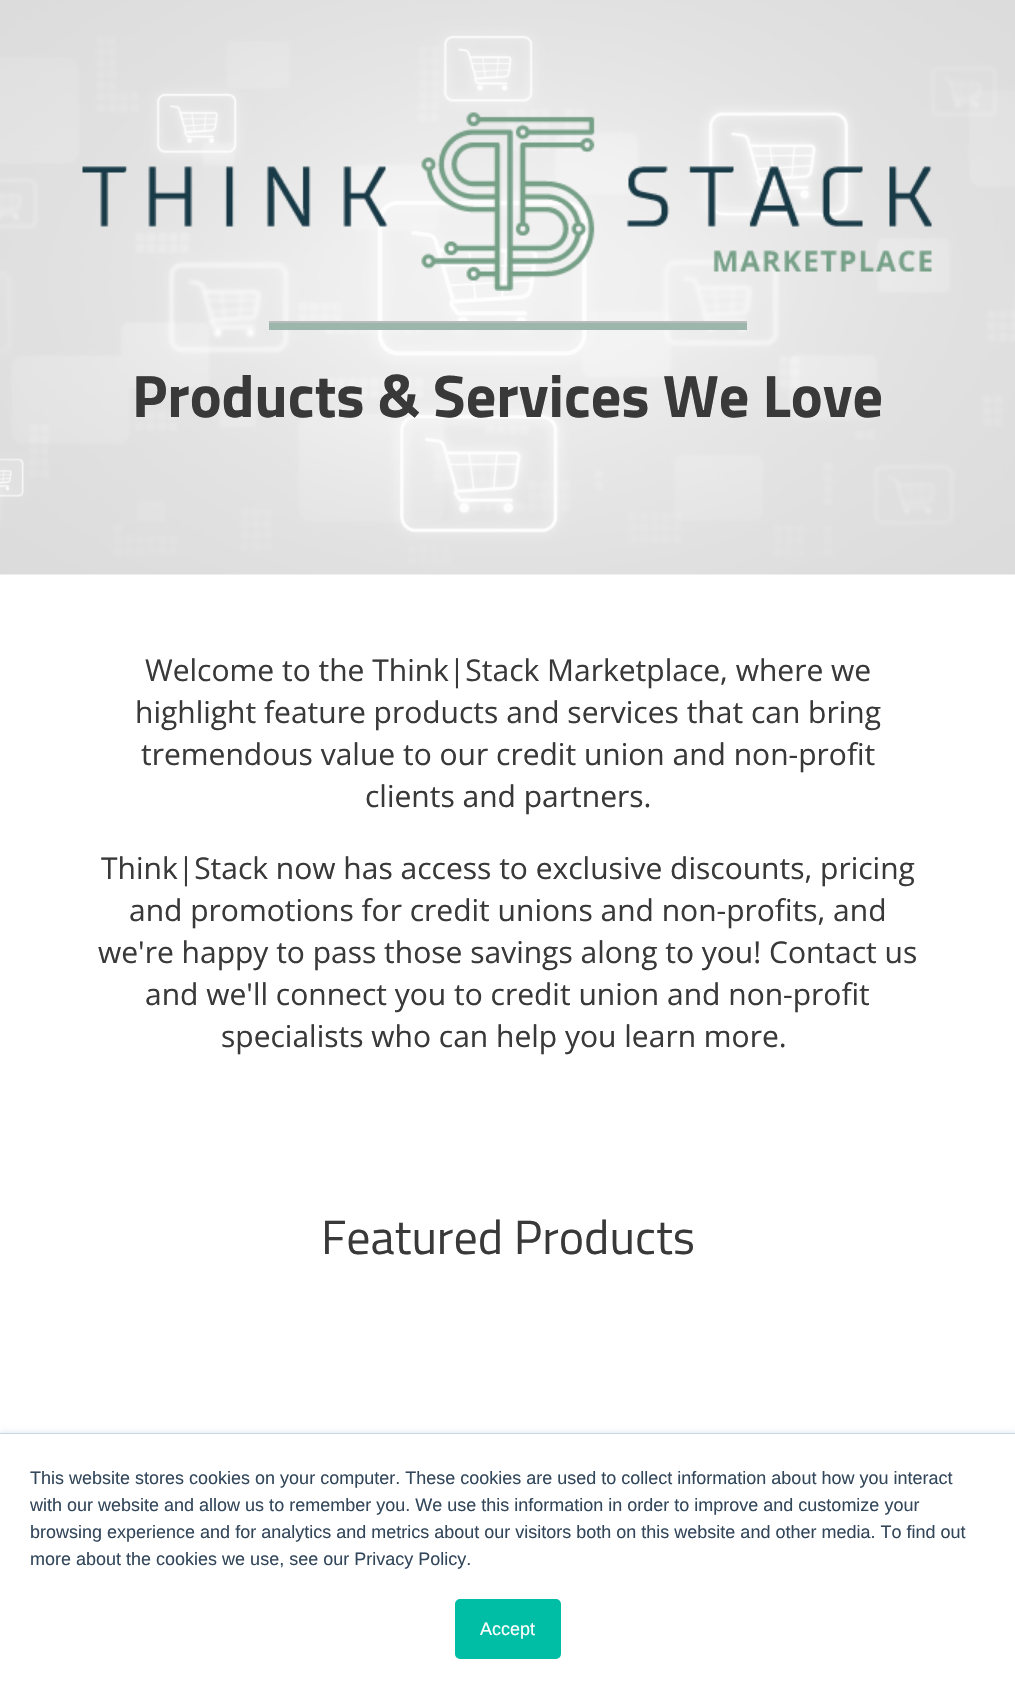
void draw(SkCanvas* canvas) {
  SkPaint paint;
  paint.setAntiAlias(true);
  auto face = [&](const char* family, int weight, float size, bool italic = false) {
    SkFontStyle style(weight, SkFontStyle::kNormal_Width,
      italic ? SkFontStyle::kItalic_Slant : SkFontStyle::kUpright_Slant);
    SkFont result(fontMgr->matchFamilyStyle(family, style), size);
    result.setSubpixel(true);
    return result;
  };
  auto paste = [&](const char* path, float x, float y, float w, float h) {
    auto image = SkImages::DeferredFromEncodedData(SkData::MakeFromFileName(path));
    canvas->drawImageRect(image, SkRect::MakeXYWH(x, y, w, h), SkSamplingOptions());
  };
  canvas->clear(0xffffffff);
  paste("img/1.png", 0, 0, 1015, 575);
  paste("img/2.png", 82, 112, 850, 179);
  paint.setColor(0xffb8bcbc);
  canvas->drawRect(SkRect::MakeXYWH(269, 321, 478, 2), paint);
  paint.setColor(0xff9cb6ac);
  canvas->drawRect(SkRect::MakeXYWH(269, 323, 478, 7), paint);
  paint.setColor(0xffeaf0f6);
  paint.setMaskFilter(SkMaskFilter::MakeBlur(kNormal_SkBlurStyle, 2));
  canvas->drawRect(SkRect::MakeXYWH(0, 1431, 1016, 266), paint);
  paint.setMaskFilter(nullptr);
  paint.setColor(0xffcbd6e2);
  canvas->drawRect(SkRect::MakeXYWH(0, 1433, 1015, 1), paint);
  paint.setColor(0xffffffff);
  canvas->drawRect(SkRect::MakeXYWH(0, 1434, 1015, 264), paint);
  paint.setColor(0xff00bda5);
  canvas->drawRoundRect(SkRect::MakeXYWH(456, 1600, 104, 58), 4, 4, paint);
  paint.setStroke(true);
  paint.setStrokeWidth(2);
  canvas->drawRoundRect(SkRect::MakeXYWH(456, 1600, 104, 58), 4, 4, paint);
  auto f0 = face("Titillium Web", 700, 60);
  paint.setStroke(false);
  paint.setColor(0xff393939);
  canvas->drawString("Products & Services We Love", 132, 417, f0, paint);
  auto f1 = face("Open Sans", 400, 30);
  {
    const struct { const char* s; float x, y; } items[] = {
      {"Welcome to the Think|Stack Marketplace, where we", 145, 681},
      {"highlight feature products and services that can bring", 135, 723},
      {"tremendous value to our credit union and non-profit", 141, 765},
      {"clients and partners.", 365, 807},
      {"Think|Stack now has access to exclusive discounts, pricing", 101, 879},
      {"and promotions for credit unions and non-profits, and", 129, 921},
      {"we're happy to pass those savings along to you! Contact us", 98, 963},
      {"and we'll connect you to credit union and non-profit", 145, 1005},
      {"specialists who can help you learn more.", 221, 1047},
    };
    for (auto [s, x, y] : items) {
      canvas->drawString(s, x, y, f1, paint);
    }
  }
  auto f2 = face("Titillium Web", 400, 48);
  canvas->drawString("Featured Products", 321, 1254, f2, paint);
  auto f3 = face("Liberation Sans", 400, 18);
  paint.setColor(0xff33475b);
  {
    const struct { const char* s; float x, y; } items[] = {
      {"This website stores cookies on your computer. These cookies are used to collect information about how you interact", 30, 1484},
      {"with our website and allow us to remember you. We use this information in order to improve and customize your", 30, 1511},
      {"browsing experience and for analytics and metrics about our visitors both on this website and other media. To find out", 30, 1538},
      {"more about the cookies we use, see our Privacy Policy.", 30, 1565},
    };
    for (auto [s, x, y] : items) {
      canvas->drawString(s, x, y, f3, paint);
    }
  }
  paint.setColor(0xffffffff);
  canvas->drawString("Accept", 480, 1635, f3, paint);
}
